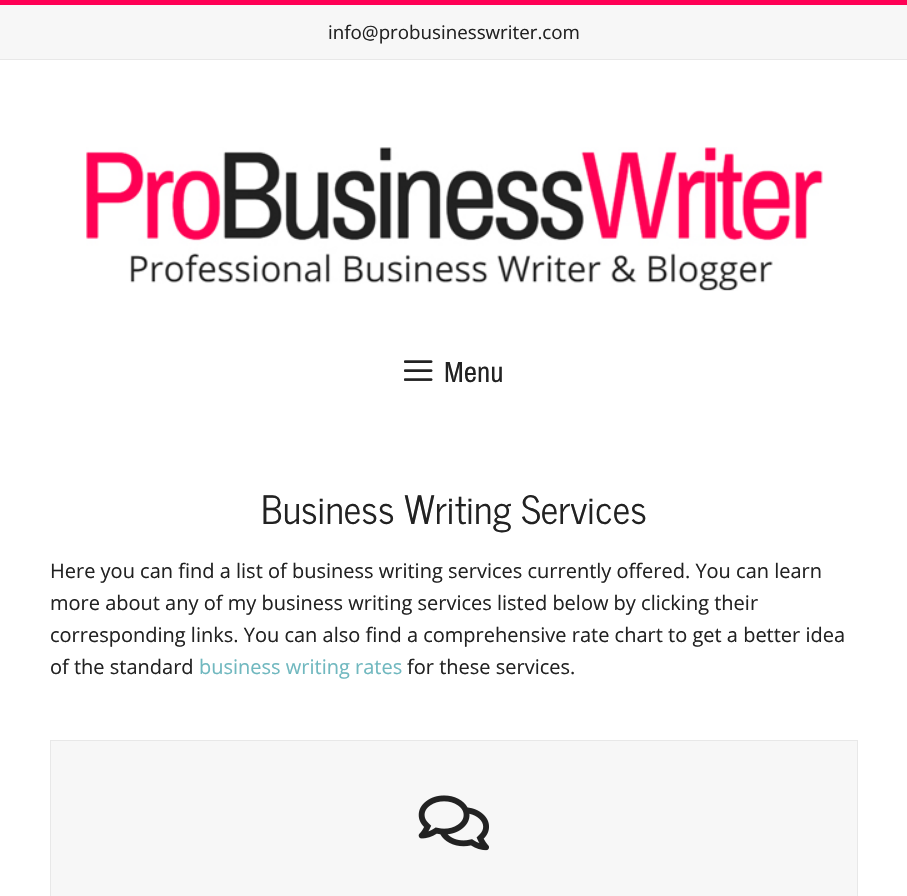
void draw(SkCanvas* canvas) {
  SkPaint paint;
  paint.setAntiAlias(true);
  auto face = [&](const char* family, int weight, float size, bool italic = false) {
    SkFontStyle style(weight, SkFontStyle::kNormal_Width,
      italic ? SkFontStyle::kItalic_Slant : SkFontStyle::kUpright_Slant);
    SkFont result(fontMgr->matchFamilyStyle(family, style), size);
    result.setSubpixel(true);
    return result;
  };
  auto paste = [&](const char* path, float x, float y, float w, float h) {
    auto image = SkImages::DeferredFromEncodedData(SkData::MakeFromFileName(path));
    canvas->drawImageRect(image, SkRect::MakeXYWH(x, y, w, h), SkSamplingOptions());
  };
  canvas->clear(0xffffffff);
  {
    const struct { float x, y, w, h; SkColor color; } items[] = {
      {0, 5, 907, 54, 0xfff7f7f7},
      {0, 0, 907, 5, 0xffff0055},
      {0, 59, 907, 1, 0xffe8e8e8},
    };
    for (auto [x, y, w, h, color] : items) {
      paint.setColor(color);
      canvas->drawRect(SkRect::MakeXYWH(x, y, w, h), paint);
    }
  }
  paste("img/1.png", 86, 147, 737, 144);
  paste("img/2.png", 404, 360, 29, 21);
  paint.setColor(0xfff7f7f7);
  canvas->drawRect(SkRect::MakeXYWH(50.5f, 740.5f, 807, 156), paint);
  paint.setStroke(true);
  paint.setStrokeWidth(1);
  paint.setColor(0xffe8e8e8);
  canvas->drawRect(SkRect::MakeXYWH(50.5f, 740.5f, 807, 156), paint);
  paste("img/3.png", 418, 795, 71, 56);
  auto f0 = face("Open Sans", 400, 18.75f);
  paint.setStroke(false);
  paint.setColor(0xff222222);
  canvas->drawString("info@probusinesswriter.com", 328, 39, f0, paint);
  auto f1 = face("Archivo Narrow", 400, 29);
  canvas->drawString("Menu", 444, 382, f1, paint);
  auto f2 = face("News Cycle", 400, 38.75f);
  canvas->drawString("Business Writing Services", 261, 524, f2, paint);
  auto f3 = face("Open Sans", 400, 20);
  {
    const struct { const char* s; float x, y; } items[] = {
      {"Here you can find a list of business writing services currently offered. You can learn", 50, 578},
      {"more about any of my business writing services listed below by clicking their", 50, 610},
      {"corresponding links. You can also find a comprehensive rate chart to get a better idea", 50, 642},
      {"of the standard", 50, 674},
    };
    for (auto [s, x, y] : items) {
      canvas->drawString(s, x, y, f3, paint);
    }
  }
  paint.setColor(0xff70b8bf);
  canvas->drawString("business writing rates", 199, 674, f3, paint);
  paint.setColor(0xff222222);
  canvas->drawString("for these services.", 407, 674, f3, paint);
}
